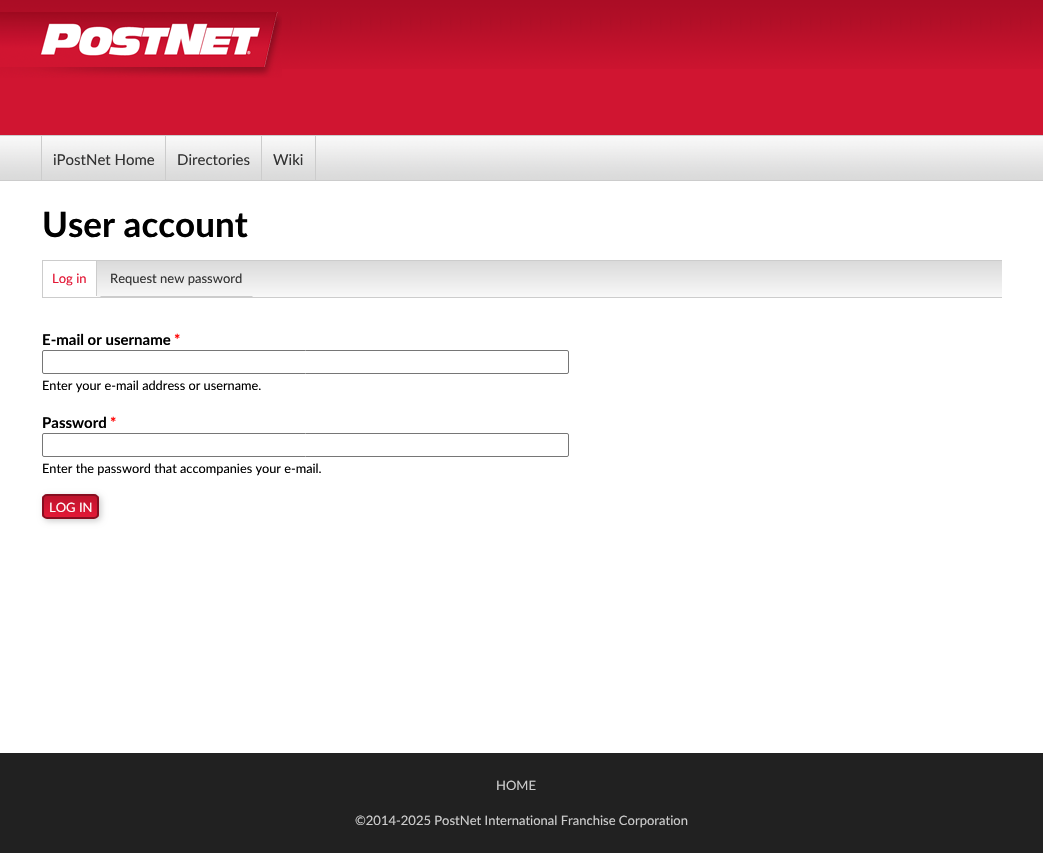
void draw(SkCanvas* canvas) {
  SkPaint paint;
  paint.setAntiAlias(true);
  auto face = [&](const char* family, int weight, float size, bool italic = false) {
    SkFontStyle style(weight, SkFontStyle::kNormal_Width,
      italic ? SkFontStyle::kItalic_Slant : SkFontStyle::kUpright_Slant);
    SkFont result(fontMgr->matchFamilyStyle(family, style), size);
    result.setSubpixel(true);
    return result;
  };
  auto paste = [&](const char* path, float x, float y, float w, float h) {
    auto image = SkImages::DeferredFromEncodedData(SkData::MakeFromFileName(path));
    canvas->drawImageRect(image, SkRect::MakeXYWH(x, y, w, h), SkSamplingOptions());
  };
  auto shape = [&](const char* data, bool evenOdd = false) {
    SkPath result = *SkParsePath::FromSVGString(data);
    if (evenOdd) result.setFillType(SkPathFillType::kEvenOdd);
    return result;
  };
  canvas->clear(0xffffffff);
  paint.setColor(0xffd01531);
  canvas->drawRect(SkRect::MakeXYWH(0, 69, 1043, 66), paint);
  paste("img/1.png", 0, 0, 1043, 69);
  paste("img/2.png", 0, 12, 282, 66);
  paste("img/3.png", 0, 136, 1043, 45);
  {
    const struct { float x, y, w, h; SkColor color; } items[] = {
      {0, 135, 1043, 1, 0xffcccccc},
      {165, 136, 1, 45, 0xffcccccc},
      {41, 136, 1, 45, 0xffcccccc},
      {261, 136, 1, 45, 0xffcccccc},
      {315, 136, 1, 45, 0xffcccccc},
    };
    for (auto [x, y, w, h, color] : items) {
      paint.setColor(color);
      canvas->drawRect(SkRect::MakeXYWH(x, y, w, h), paint);
    }
  }
  {
    const SkColor colors[] = {0xffdadada, 0xfff8f8f8};
    const float stops[] = {0, 1};
    const SkPoint ends[] = {{522, 261}, {522, 297}};
    paint.setShader(SkGradientShader::MakeLinear(ends, colors, stops, 2, SkTileMode::kClamp));
    paint.setAlpha(255);
  }
  canvas->drawRect(SkRect::MakeXYWH(97, 261, 905, 36), paint);
  paint.setShader(nullptr);
  {
    const struct { float x, y, w, h; SkColor color; } items[] = {
      {42, 260, 960, 1, 0xffcccccc},
      {42, 297, 960, 1, 0xffcccccc},
      {96, 261, 1, 36, 0xffcccccc},
      {96, 296, 1, 1, 0xffffffff},
      {42, 261, 1, 36, 0xffcccccc},
    };
    for (auto [x, y, w, h, color] : items) {
      paint.setColor(color);
      canvas->drawRect(SkRect::MakeXYWH(x, y, w, h), paint);
    }
  }
  canvas->drawPath(shape("M253 297H100L101 296H252Z"), paint);
  paint.setStroke(true);
  paint.setStrokeWidth(1);
  paint.setColor(0xff767676);
  canvas->drawRoundRect(SkRect::MakeXYWH(42.5f, 350.5f, 526, 23), 1.5f, 1.5f, paint);
  canvas->drawRoundRect(SkRect::MakeXYWH(42.5f, 433.5f, 526, 23), 1.5f, 1.5f, paint);
  paint.setStroke(false);
  paint.setColor(0x33000101);
  paint.setMaskFilter(SkMaskFilter::MakeBlur(kNormal_SkBlurStyle, 3));
  canvas->drawRoundRect(SkRect::MakeXYWH(44, 496, 57, 25), 5, 5, paint);
  paint.setMaskFilter(nullptr);
  canvas->save();
  canvas->clipPath(shape("M47 494H94C97 494 99 496 99 499V514C99 517 97 519 94 519H47C44 519 42 517 42 514V499C42 496 44 494 47 494Z"), true);
  {
    const SkColor colors[] = {0xffbe142d, 0xffe31836};
    const float stops[] = {0, 1};
    const SkPoint ends[] = {{71, 496}, {71, 517}};
    paint.setShader(SkGradientShader::MakeLinear(ends, colors, stops, 2, SkTileMode::kClamp));
    paint.setAlpha(255);
  }
  canvas->drawRect(SkRect::MakeXYWH(42, 496, 57, 21), paint);
  canvas->restore();
  paint.setStroke(true);
  paint.setStrokeWidth(2);
  paint.setShader(nullptr);
  paint.setColor(0xff870e20);
  canvas->drawRoundRect(SkRect::MakeXYWH(43, 495, 55, 23), 4, 4, paint);
  paint.setStroke(false);
  paint.setColor(0xff212121);
  canvas->drawRect(SkRect::MakeXYWH(0, 753, 1043, 100), paint);
  auto f0 = face("Lato", 400, 15);
  paint.setColor(0xff333333);
  {
    const struct { const char* s; float x, y; } items[] = {
      {"iPostNet Home", 53, 165},
      {"Directories", 177, 165},
      {"Wiki", 273, 165},
    };
    for (auto [s, x, y] : items) {
      canvas->drawString(s, x, y, f0, paint);
    }
  }
  auto f1 = face("Lato", 700, 35);
  paint.setColor(0xff000000);
  canvas->drawString("User account", 42, 237, f1, paint);
  auto f2 = face("Lato", 400, 13);
  paint.setColor(0xffe31836);
  canvas->drawString("Log in", 52, 283, f2, paint);
  paint.setColor(0xff333333);
  canvas->drawString("Request new password", 110, 283, f2, paint);
  auto f3 = face("Lato", 700, 15);
  paint.setColor(0xff000000);
  canvas->drawString("E-mail or username", 42, 345, f3, paint);
  paint.setColor(0xffff0000);
  canvas->drawString("*", 174, 345, f3, paint);
  auto f4 = face("Lato", 400, 12.75f);
  paint.setColor(0xff000000);
  canvas->drawString("Enter your e-mail address or username.", 42, 390, f4, paint);
  canvas->drawString("Password", 42, 428, f3, paint);
  paint.setColor(0xffff0000);
  canvas->drawString("*", 110, 428, f3, paint);
  paint.setColor(0xff000000);
  canvas->drawString("Enter the password that accompanies your e-mail.", 42, 473, f4, paint);
  paint.setColor(0xffffffff);
  canvas->drawString("LOG IN", 49, 512, f2, paint);
  paint.setColor(0xffcccccc);
  canvas->drawString("HOME", 496, 790, f2, paint);
  canvas->drawString("©2014-2025 PostNet International Franchise Corporation", 355, 825, f2, paint);
}
